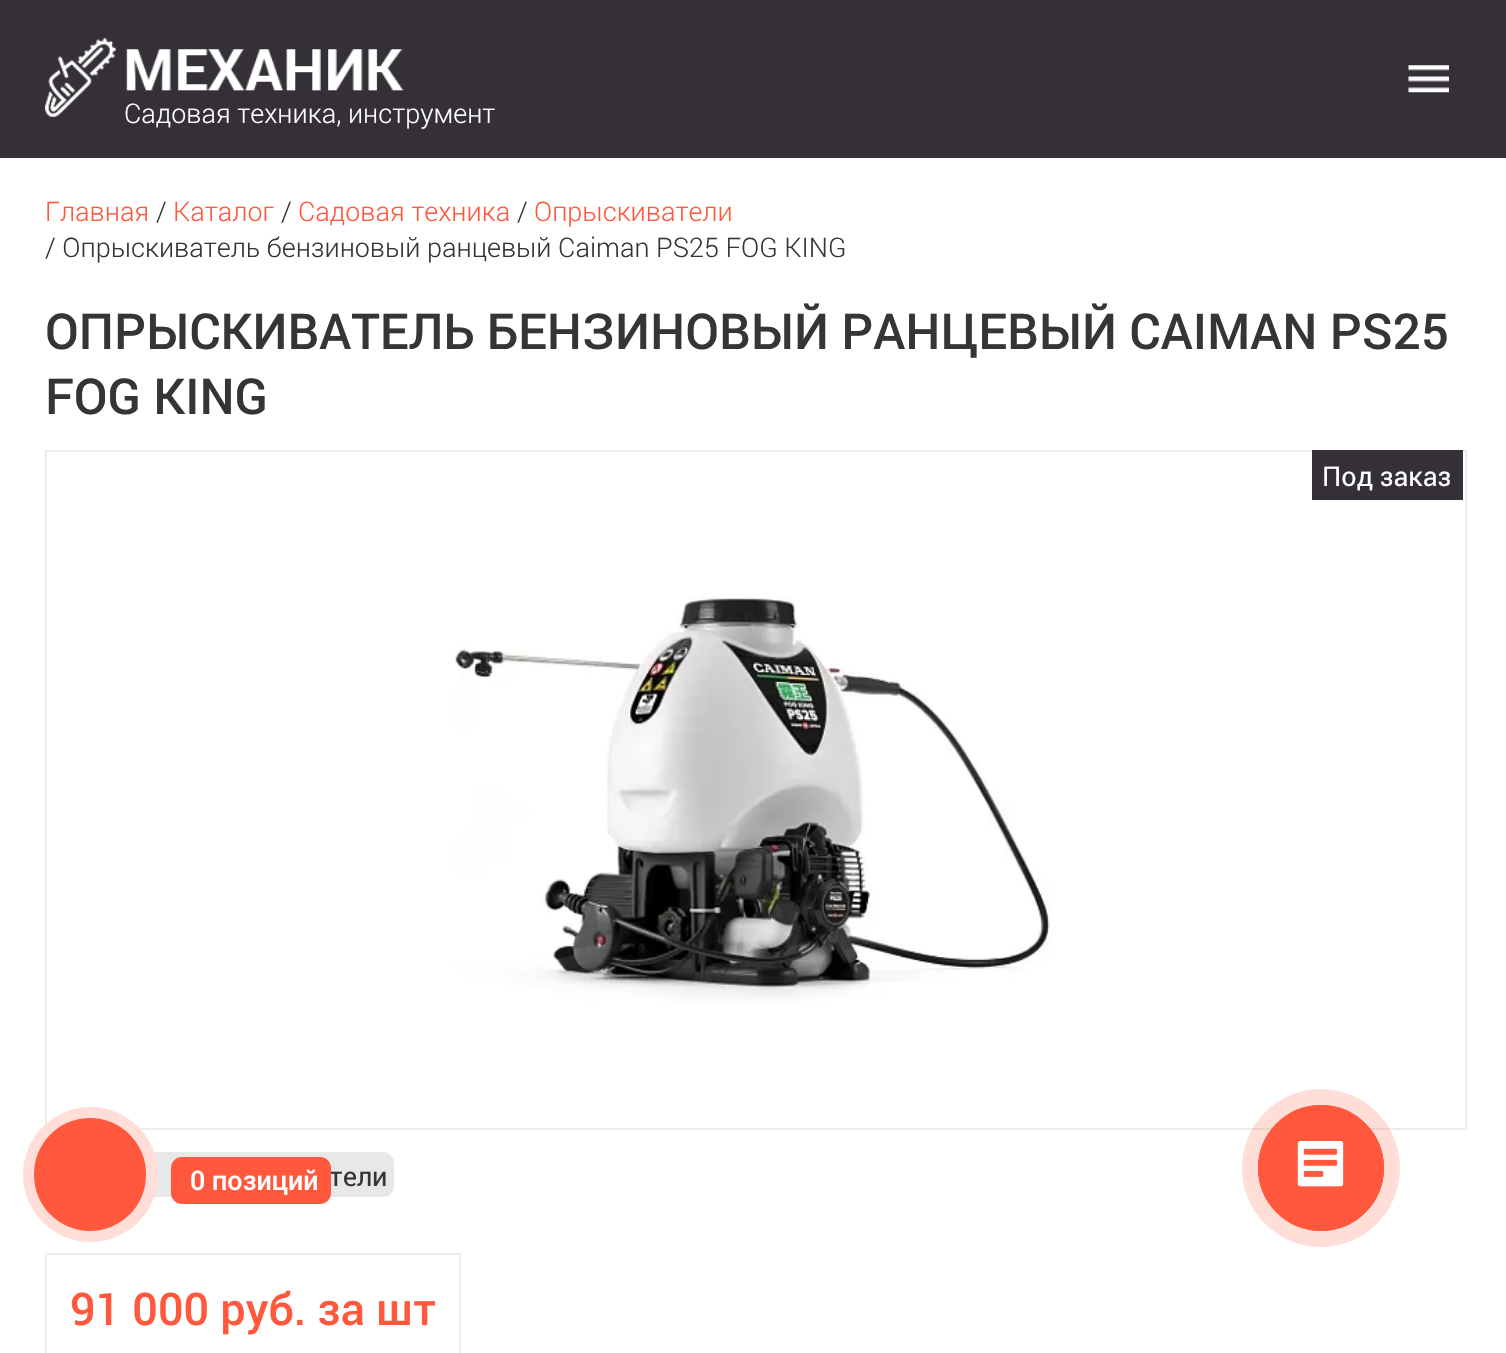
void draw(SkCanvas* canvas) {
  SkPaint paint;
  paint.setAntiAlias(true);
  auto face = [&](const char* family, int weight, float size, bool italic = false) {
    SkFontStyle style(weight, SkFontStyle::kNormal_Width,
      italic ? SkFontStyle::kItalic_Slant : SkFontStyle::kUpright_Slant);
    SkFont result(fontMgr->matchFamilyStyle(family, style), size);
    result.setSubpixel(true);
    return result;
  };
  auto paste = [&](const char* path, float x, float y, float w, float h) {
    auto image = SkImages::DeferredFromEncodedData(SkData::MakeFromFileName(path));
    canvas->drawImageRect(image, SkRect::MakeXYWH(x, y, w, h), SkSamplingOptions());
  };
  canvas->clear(0xffffffff);
  paint.setColor(0xff353037);
  canvas->drawRect(SkRect::MakeXYWH(0, 0, 1506, 158), paint);
  paste("img/1.png", 1408, 65, 41, 28);
  paste("img/2.png", 45, 38, 359, 79);
  paint.setStroke(true);
  paint.setStrokeWidth(2);
  paint.setColor(0xffededed);
  canvas->drawRect(SkRect::MakeXYWH(46, 451, 1420, 678), paint);
  paste("img/3.png", 454, 596, 596, 407);
  paint.setStroke(false);
  paint.setColor(0xff353037);
  canvas->drawRect(SkRect::MakeXYWH(1312, 450, 151, 50), paint);
  paint.setColor(0xffe8e8e8);
  canvas->drawRoundRect(SkRect::MakeXYWH(45, 1152, 349, 45), 11, 11, paint);
  paint.setStroke(true);
  paint.setColor(0xffededed);
  canvas->drawRect(SkRect::MakeXYWH(46, 1254, 414, 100), paint);
  paint.setStroke(false);
  paint.setColor(0xffffded8);
  canvas->drawCircle(90.5f, 1174.5f, 67.5f, paint);
  paint.setColor(0xffff583d);
  canvas->drawRoundRect(SkRect::MakeXYWH(34, 1118, 112, 113), 56, 56, paint);
  paint.setColor(0x33ff583d);
  canvas->drawCircle(1321, 1168, 79, paint);
  paint.setStroke(true);
  paint.setColor(0xffff583d);
  canvas->drawCircle(1321, 1168, 62, paint);
  paint.setStroke(false);
  canvas->drawCircle(1321, 1168, 63, paint);
  paste("img/4.png", 1297, 1141, 47, 46);
  auto f0 = face("Roboto", 300, 27);
  paint.setColor(0xffffffff);
  canvas->drawString("Садовая техника, инструмент", 124, 123, f0, paint);
  paint.setColor(0xffff583d);
  canvas->drawString("Главная", 45, 221, f0, paint);
  paint.setColor(0xff353535);
  canvas->drawString("/", 156, 221, f0, paint);
  paint.setColor(0xffff583d);
  canvas->drawString("Каталог", 173, 221, f0, paint);
  paint.setColor(0xff353535);
  canvas->drawString("/", 281, 221, f0, paint);
  paint.setColor(0xffff583d);
  canvas->drawString("Садовая техника", 298, 221, f0, paint);
  paint.setColor(0xff353535);
  canvas->drawString("/", 517, 221, f0, paint);
  paint.setColor(0xffff583d);
  canvas->drawString("Опрыскиватели", 534, 221, f0, paint);
  paint.setColor(0xff353535);
  canvas->drawString("/ Опрыскиватель бензиновый ранцевый Caiman PS25 FOG KING", 45, 257, f0, paint);
  auto f1 = face("Roboto", 500, 49.5f);
  canvas->drawString("ОПРЫСКИВАТЕЛЬ БЕНЗИНОВЫЙ РАНЦЕВЫЙ CAIMAN PS25", 45, 349, f1, paint);
  canvas->drawString("FOG KING", 45, 414, f1, paint);
  auto f2 = face("Roboto", 400, 27);
  paint.setColor(0xffffffff);
  canvas->drawString("Под заказ", 1322, 486, f2, paint);
  paint.setColor(0xff353535);
  canvas->drawString("тели", 329, 1186, f2, paint);
  auto f3 = face("Roboto", 500, 45);
  paint.setColor(0xffff583d);
  canvas->drawString("91 000 руб. за шт", 70, 1325, f3, paint);
  canvas->drawRoundRect(SkRect::MakeXYWH(171, 1157, 160, 47), 11, 11, paint);
  auto f4 = face("Roboto", 500, 27);
  paint.setColor(0xffffffff);
  canvas->drawString("0 позиций", 190, 1190, f4, paint);
}
